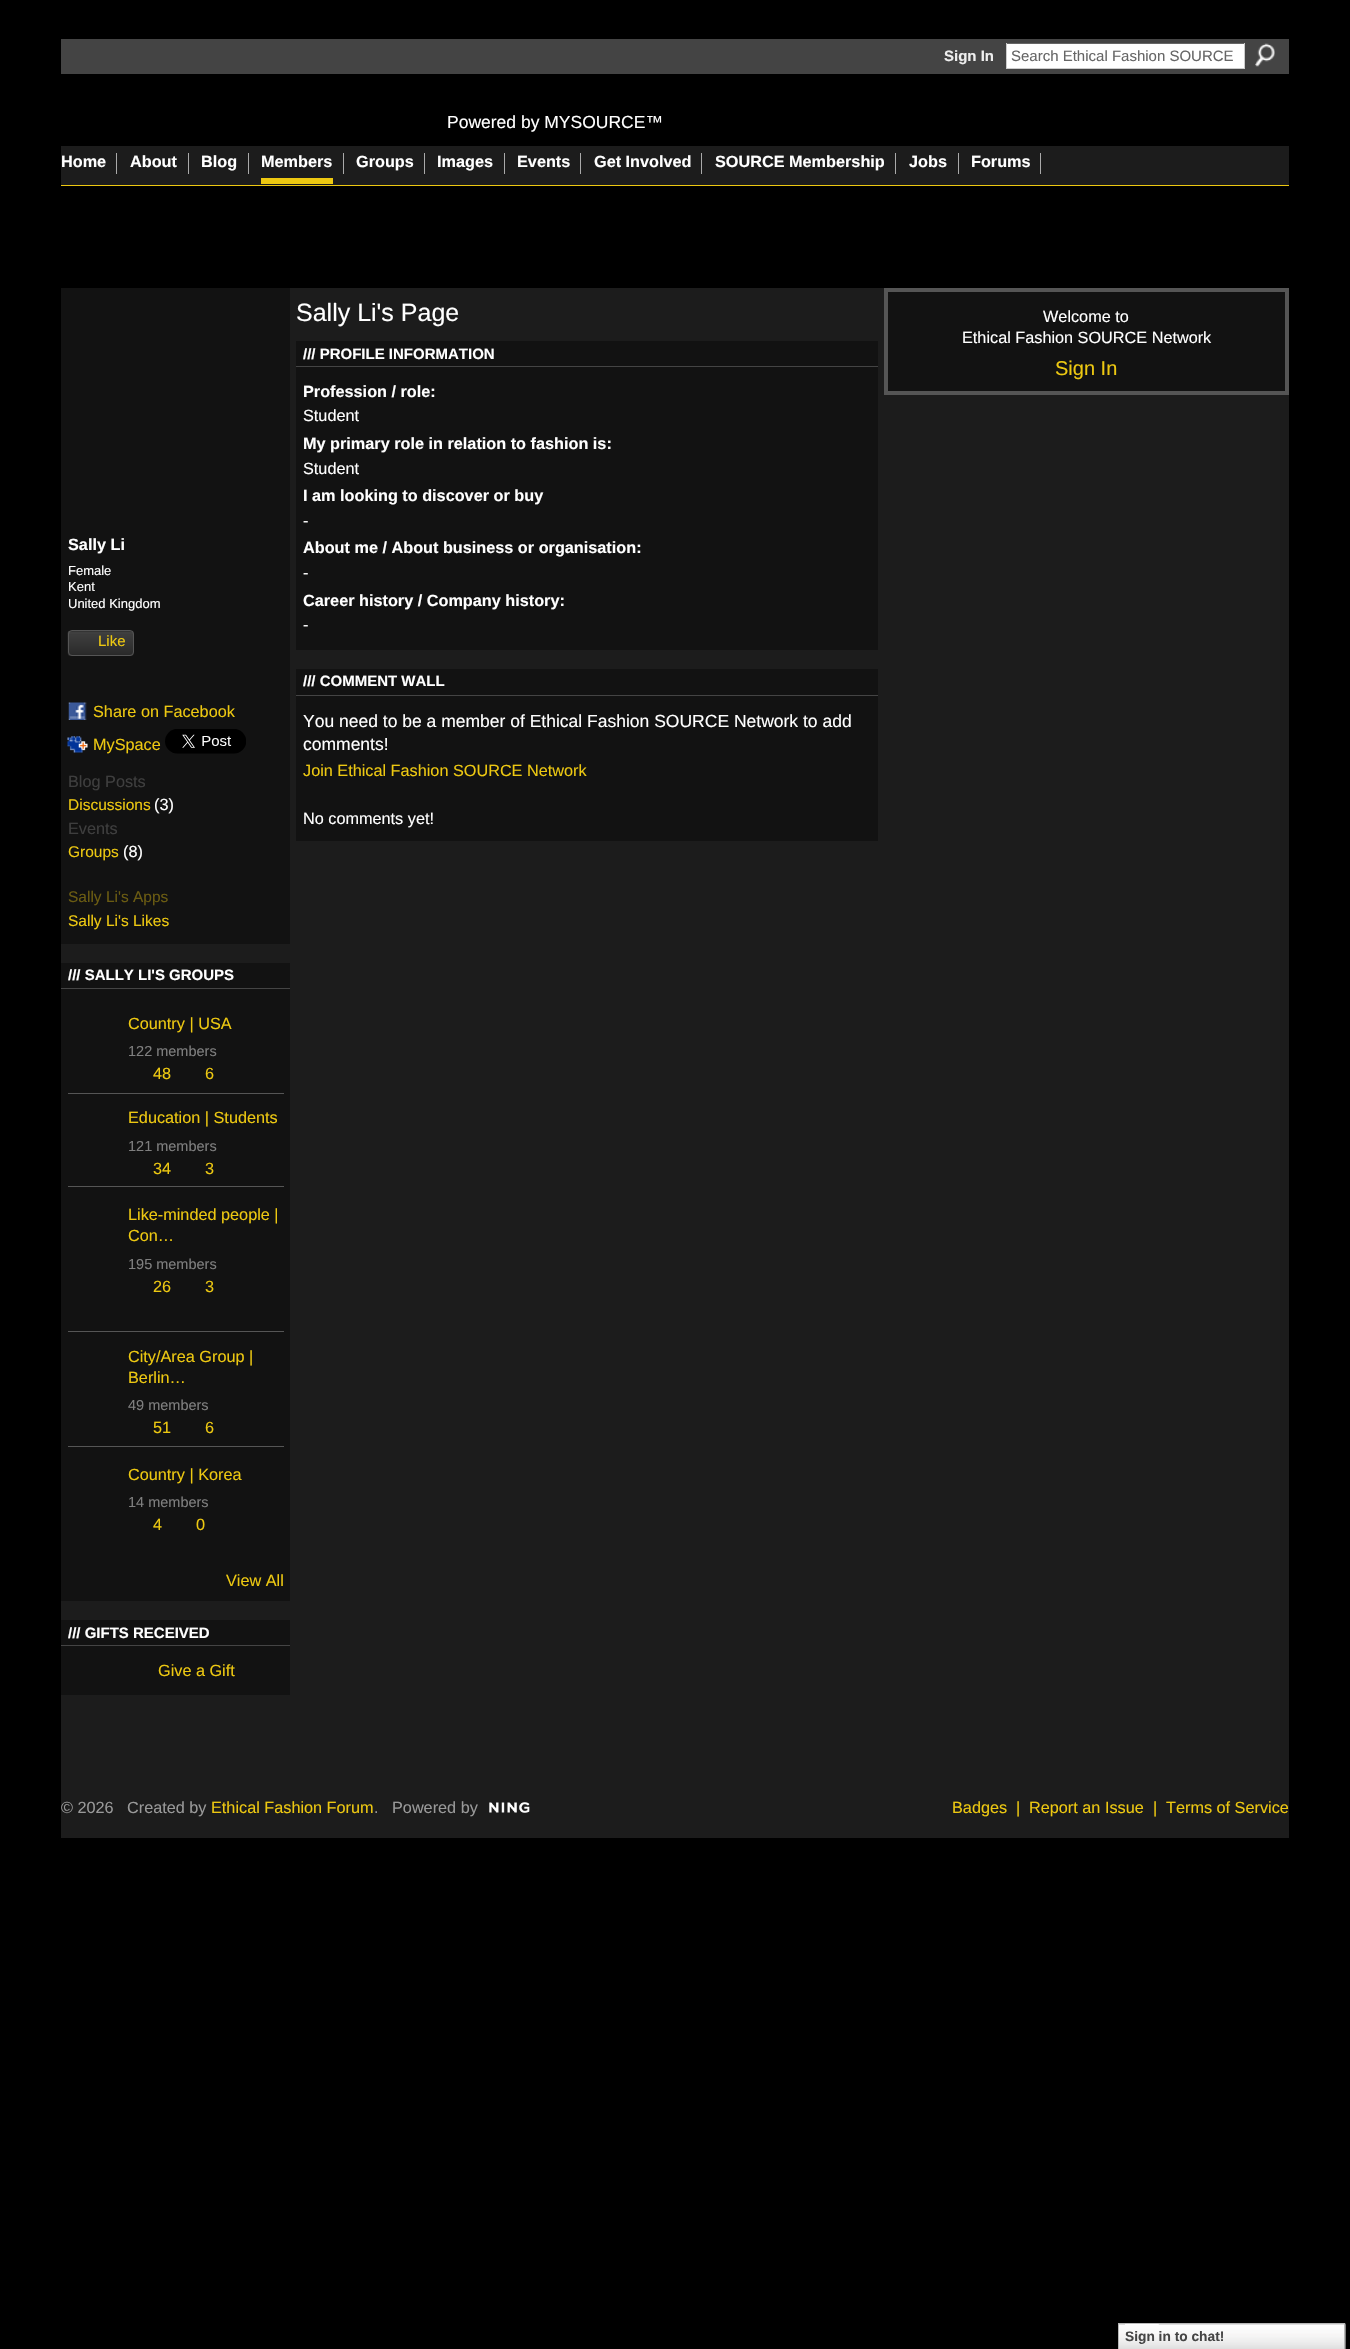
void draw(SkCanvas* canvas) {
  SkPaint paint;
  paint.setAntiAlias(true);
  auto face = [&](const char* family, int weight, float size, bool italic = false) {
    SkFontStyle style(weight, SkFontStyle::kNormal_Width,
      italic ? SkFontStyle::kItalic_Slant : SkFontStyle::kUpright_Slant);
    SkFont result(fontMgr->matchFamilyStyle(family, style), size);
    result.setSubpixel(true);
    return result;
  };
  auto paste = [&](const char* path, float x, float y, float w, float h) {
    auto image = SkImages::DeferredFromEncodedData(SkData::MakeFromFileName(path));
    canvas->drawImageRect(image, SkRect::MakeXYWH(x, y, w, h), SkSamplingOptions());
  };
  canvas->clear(0xff000000);
  {
    const struct { float x, y, w, h; SkColor color; } items[] = {
      {61, 39, 1228, 35, 0xff444444},
      {1007, 44, 237, 24, 0xffffffff},
      {1006, 43, 239, 1, 0xff666666},
      {1244, 43, 1, 26, 0xffcccccc},
      {1006, 68, 239, 1, 0xffcccccc},
      {1006, 43, 1, 26, 0xffcccccc},
    };
    for (auto [x, y, w, h, color] : items) {
      paint.setColor(color);
      canvas->drawRect(SkRect::MakeXYWH(x, y, w, h), paint);
    }
  }
  paste("img/1.png", 1255, 43, 20, 24);
  {
    const struct { float x, y, w, h; SkColor color; } items[] = {
      {61, 146, 1228, 39, 0xff1c1c1c},
      {61, 185, 1228, 1, 0xffedc811},
      {116, 153, 1, 21, 0xffaaaaaa},
      {188, 153, 1, 21, 0xffaaaaaa},
      {248, 153, 1, 21, 0xffaaaaaa},
      {343, 153, 1, 21, 0xffaaaaaa},
      {261, 178, 72, 6, 0xffedc811},
      {424, 153, 1, 21, 0xffaaaaaa},
      {504, 153, 1, 21, 0xffaaaaaa},
      {580, 153, 1, 21, 0xffaaaaaa},
      {701, 153, 1, 21, 0xffaaaaaa},
      {895, 153, 1, 21, 0xffaaaaaa},
      {958, 153, 1, 21, 0xffaaaaaa},
      {1040, 153, 1, 21, 0xffaaaaaa},
      {61, 288, 1228, 1550, 0xff1c1c1c},
      {61, 288, 229, 656, 0xff121212},
    };
    for (auto [x, y, w, h, color] : items) {
      paint.setColor(color);
      canvas->drawRect(SkRect::MakeXYWH(x, y, w, h), paint);
    }
  }
  paste("img/2.png", 67, 631, 67, 25);
  paint.setStroke(true);
  paint.setStrokeWidth(1);
  paint.setColor(0xff555555);
  canvas->drawRoundRect(SkRect::MakeXYWH(68.5f, 630.5f, 65, 25), 3.5f, 3.5f, paint);
  paste("img/3.png", 68, 702, 19, 18);
  paste("img/4.png", 67, 736, 21, 17);
  paste("img/5.png", 165, 729, 81, 25);
  paint.setStroke(false);
  {
    const struct { float x, y, w, h; SkColor color; } items[] = {
      {61, 963, 229, 638, 0xff121212},
      {61, 988, 229, 1, 0xff444444},
      {68, 1093, 216, 1, 0xff555555},
      {68, 1186, 216, 1, 0xff555555},
      {68, 1331, 216, 1, 0xff555555},
      {68, 1446, 216, 1, 0xff555555},
      {61, 1620, 229, 75, 0xff121212},
      {61, 1645, 229, 1, 0xff444444},
      {296, 341, 582, 309, 0xff121212},
      {296, 366, 582, 1, 0xff444444},
      {296, 669, 582, 172, 0xff121212},
      {296, 695, 582, 1, 0xff444444},
    };
    for (auto [x, y, w, h, color] : items) {
      paint.setColor(color);
      canvas->drawRect(SkRect::MakeXYWH(x, y, w, h), paint);
    }
  }
  paint.setColor(0xff121212);
  canvas->drawRect(SkRect::MakeXYWH(886, 290, 401, 103), paint);
  paint.setStroke(true);
  paint.setStrokeWidth(4);
  paint.setColor(0xff555555);
  canvas->drawRect(SkRect::MakeXYWH(886, 290, 401, 103), paint);
  paste("img/6.png", 489, 1802, 41, 11);
  paste("img/7.png", 1119, 2323, 227, 26);
  paint.setStrokeWidth(1);
  paint.setColor(0xffb7b7b7);
  canvas->drawRect(SkRect::MakeXYWH(1118.5f, 2323.5f, 226, 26), paint);
  paste("img/8.png", 1125, 2323, 34, 2);
  auto f0 = face("Liberation Sans", 700, 15);
  paint.setStroke(false);
  paint.setColor(0xffeeeeee);
  canvas->drawString("Sign In", 944, 61, f0, paint);
  auto f1 = face("Liberation Sans", 400, 15);
  paint.setColor(0xff666666);
  canvas->drawString("Search Ethical Fashion SOURCE", 1011, 61, f1, paint);
  auto f2 = face("Liberation Sans", 400, 17.5f);
  paint.setColor(0xffffffff);
  canvas->drawString("Powered by MYSOURCE™", 447, 128, f2, paint);
  auto f3 = face("Liberation Sans", 700, 16.25f);
  {
    const struct { const char* s; float x, y; } items[] = {
      {"Home", 61, 167},
      {"About", 130, 167},
      {"Blog", 201, 167},
      {"Members", 261, 167},
      {"Groups", 356, 167},
      {"Images", 437, 167},
      {"Events", 517, 167},
      {"Get Involved", 594, 167},
      {"SOURCE Membership", 715, 167},
      {"Jobs", 909, 167},
      {"Forums", 971, 167},
      {"Sally Li", 68, 550},
    };
    for (auto [s, x, y] : items) {
      canvas->drawString(s, x, y, f3, paint);
    }
  }
  auto f4 = face("Liberation Sans", 400, 13);
  {
    const struct { const char* s; float x, y; } items[] = {
      {"Female", 68, 575},
      {"Kent", 68, 591},
      {"United Kingdom", 68, 608},
    };
    for (auto [s, x, y] : items) {
      canvas->drawString(s, x, y, f4, paint);
    }
  }
  paint.setColor(0xffedc811);
  canvas->drawString("Like", 98, 646, f1, paint);
  auto f5 = face("Liberation Sans", 400, 16.25f);
  canvas->drawString("Share on Facebook", 93, 717, f5, paint);
  canvas->drawString("MySpace", 93, 750, f5, paint);
  paint.setColor(0xff3e3e3e);
  canvas->drawString("Blog Posts", 68, 787, f5, paint);
  auto f6 = face("Liberation Sans", 400, 15.5f);
  paint.setColor(0xffedc811);
  canvas->drawString("Discussions", 68, 810, f6, paint);
  paint.setColor(0xffffffff);
  canvas->drawString("(3)", 154, 810, f5, paint);
  paint.setColor(0xff3e3e3e);
  canvas->drawString("Events", 68, 834, f5, paint);
  paint.setColor(0xffedc811);
  canvas->drawString("Groups", 68, 857, f6, paint);
  paint.setColor(0xffffffff);
  canvas->drawString("(8)", 123, 857, f5, paint);
  paint.setColor(0xff6a5b12);
  canvas->drawString("Sally Li's Apps", 68, 902, f6, paint);
  paint.setColor(0xffedc811);
  canvas->drawString("Sally Li's Likes", 68, 926, f6, paint);
  paint.setColor(0xffffffff);
  canvas->drawString("/// SALLY LI'S GROUPS", 68, 980, f0, paint);
  paint.setColor(0xffedc811);
  canvas->drawString("Country | USA", 128, 1029, f5, paint);
  auto f7 = face("Liberation Sans", 400, 14.5f);
  paint.setColor(0xff7f7f7f);
  canvas->drawString("122 members", 128, 1056, f7, paint);
  paint.setColor(0xffedc811);
  {
    const struct { const char* s; float x, y; } items[] = {
      {"48", 153, 1079},
      {"6", 205, 1079},
      {"Education | Students", 128, 1123},
    };
    for (auto [s, x, y] : items) {
      canvas->drawString(s, x, y, f5, paint);
    }
  }
  paint.setColor(0xff7f7f7f);
  canvas->drawString("121 members", 128, 1151, f7, paint);
  paint.setColor(0xffedc811);
  {
    const struct { const char* s; float x, y; } items[] = {
      {"34", 153, 1174},
      {"3", 205, 1174},
      {"Like-minded people |", 128, 1220},
      {"Con…", 128, 1241},
    };
    for (auto [s, x, y] : items) {
      canvas->drawString(s, x, y, f5, paint);
    }
  }
  paint.setColor(0xff7f7f7f);
  canvas->drawString("195 members", 128, 1269, f7, paint);
  paint.setColor(0xffedc811);
  {
    const struct { const char* s; float x, y; } items[] = {
      {"26", 153, 1292},
      {"3", 205, 1292},
      {"City/Area Group |", 128, 1362},
      {"Berlin…", 128, 1383},
    };
    for (auto [s, x, y] : items) {
      canvas->drawString(s, x, y, f5, paint);
    }
  }
  paint.setColor(0xff7f7f7f);
  canvas->drawString("49 members", 128, 1410, f7, paint);
  paint.setColor(0xffedc811);
  {
    const struct { const char* s; float x, y; } items[] = {
      {"51", 153, 1433},
      {"6", 205, 1433},
      {"Country | Korea", 128, 1480},
    };
    for (auto [s, x, y] : items) {
      canvas->drawString(s, x, y, f5, paint);
    }
  }
  paint.setColor(0xff7f7f7f);
  canvas->drawString("14 members", 128, 1507, f7, paint);
  paint.setColor(0xffedc811);
  {
    const struct { const char* s; float x, y; } items[] = {
      {"4", 153, 1530},
      {"0", 196, 1530},
      {"View All", 226, 1586},
    };
    for (auto [s, x, y] : items) {
      canvas->drawString(s, x, y, f5, paint);
    }
  }
  paint.setColor(0xffffffff);
  canvas->drawString("/// GIFTS RECEIVED", 68, 1638, f0, paint);
  paint.setColor(0xffedc811);
  canvas->drawString("Give a Gift", 158, 1676, f5, paint);
  auto f8 = face("Liberation Sans", 400, 25);
  paint.setColor(0xffffffff);
  canvas->drawString("Sally Li's Page", 296, 321, f8, paint);
  canvas->drawString("/// PROFILE INFORMATION", 303, 359, f0, paint);
  canvas->drawString("Profession / role:", 303, 397, f3, paint);
  canvas->drawString("Student", 303, 421, f5, paint);
  canvas->drawString("My primary role in relation to fashion is:", 303, 449, f3, paint);
  canvas->drawString("Student", 303, 474, f5, paint);
  canvas->drawString("I am looking to discover or buy", 303, 501, f3, paint);
  canvas->drawString("-", 303, 526, f5, paint);
  canvas->drawString("About me / About business or organisation:", 303, 553, f3, paint);
  canvas->drawString("-", 303, 578, f5, paint);
  canvas->drawString("Career history / Company history:", 303, 606, f3, paint);
  canvas->drawString("-", 303, 630, f5, paint);
  canvas->drawString("/// COMMENT WALL", 303, 686, f0, paint);
  canvas->drawString("You need to be a member of Ethical Fashion SOURCE Network to add", 303, 727, f2, paint);
  canvas->drawString("comments!", 303, 750, f2, paint);
  paint.setColor(0xffedc811);
  canvas->drawString("Join Ethical Fashion SOURCE Network", 303, 776, f5, paint);
  paint.setColor(0xffffffff);
  {
    const struct { const char* s; float x, y; } items[] = {
      {"No comments yet!", 303, 824},
      {"Welcome to", 1043, 322},
      {"Ethical Fashion SOURCE Network", 962, 343},
    };
    for (auto [s, x, y] : items) {
      canvas->drawString(s, x, y, f5, paint);
    }
  }
  auto f9 = face("Liberation Sans", 400, 20);
  paint.setColor(0xffedc811);
  canvas->drawString("Sign In", 1055, 375, f9, paint);
  paint.setColor(0xff999999);
  canvas->drawString("© 2026", 61, 1813, f5, paint);
  canvas->drawString("Created by", 127, 1813, f5, paint);
  paint.setColor(0xffedc811);
  canvas->drawString("Ethical Fashion Forum", 211, 1813, f5, paint);
  paint.setColor(0xff999999);
  canvas->drawString(".", 374, 1813, f5, paint);
  canvas->drawString("Powered by", 392, 1813, f5, paint);
  paint.setColor(0xffedc811);
  {
    const struct { const char* s; float x, y; } items[] = {
      {"Badges", 952, 1813},
      {"|", 1016, 1813},
      {"Report an Issue", 1029, 1813},
      {"|", 1153, 1813},
      {"Terms of Service", 1166, 1813},
    };
    for (auto [s, x, y] : items) {
      canvas->drawString(s, x, y, f5, paint);
    }
  }
  auto f10 = face("Liberation Sans", 700, 13.75f);
  paint.setColor(0xff454545);
  canvas->drawString("Sign in to chat!", 1125, 2341, f10, paint);
}
